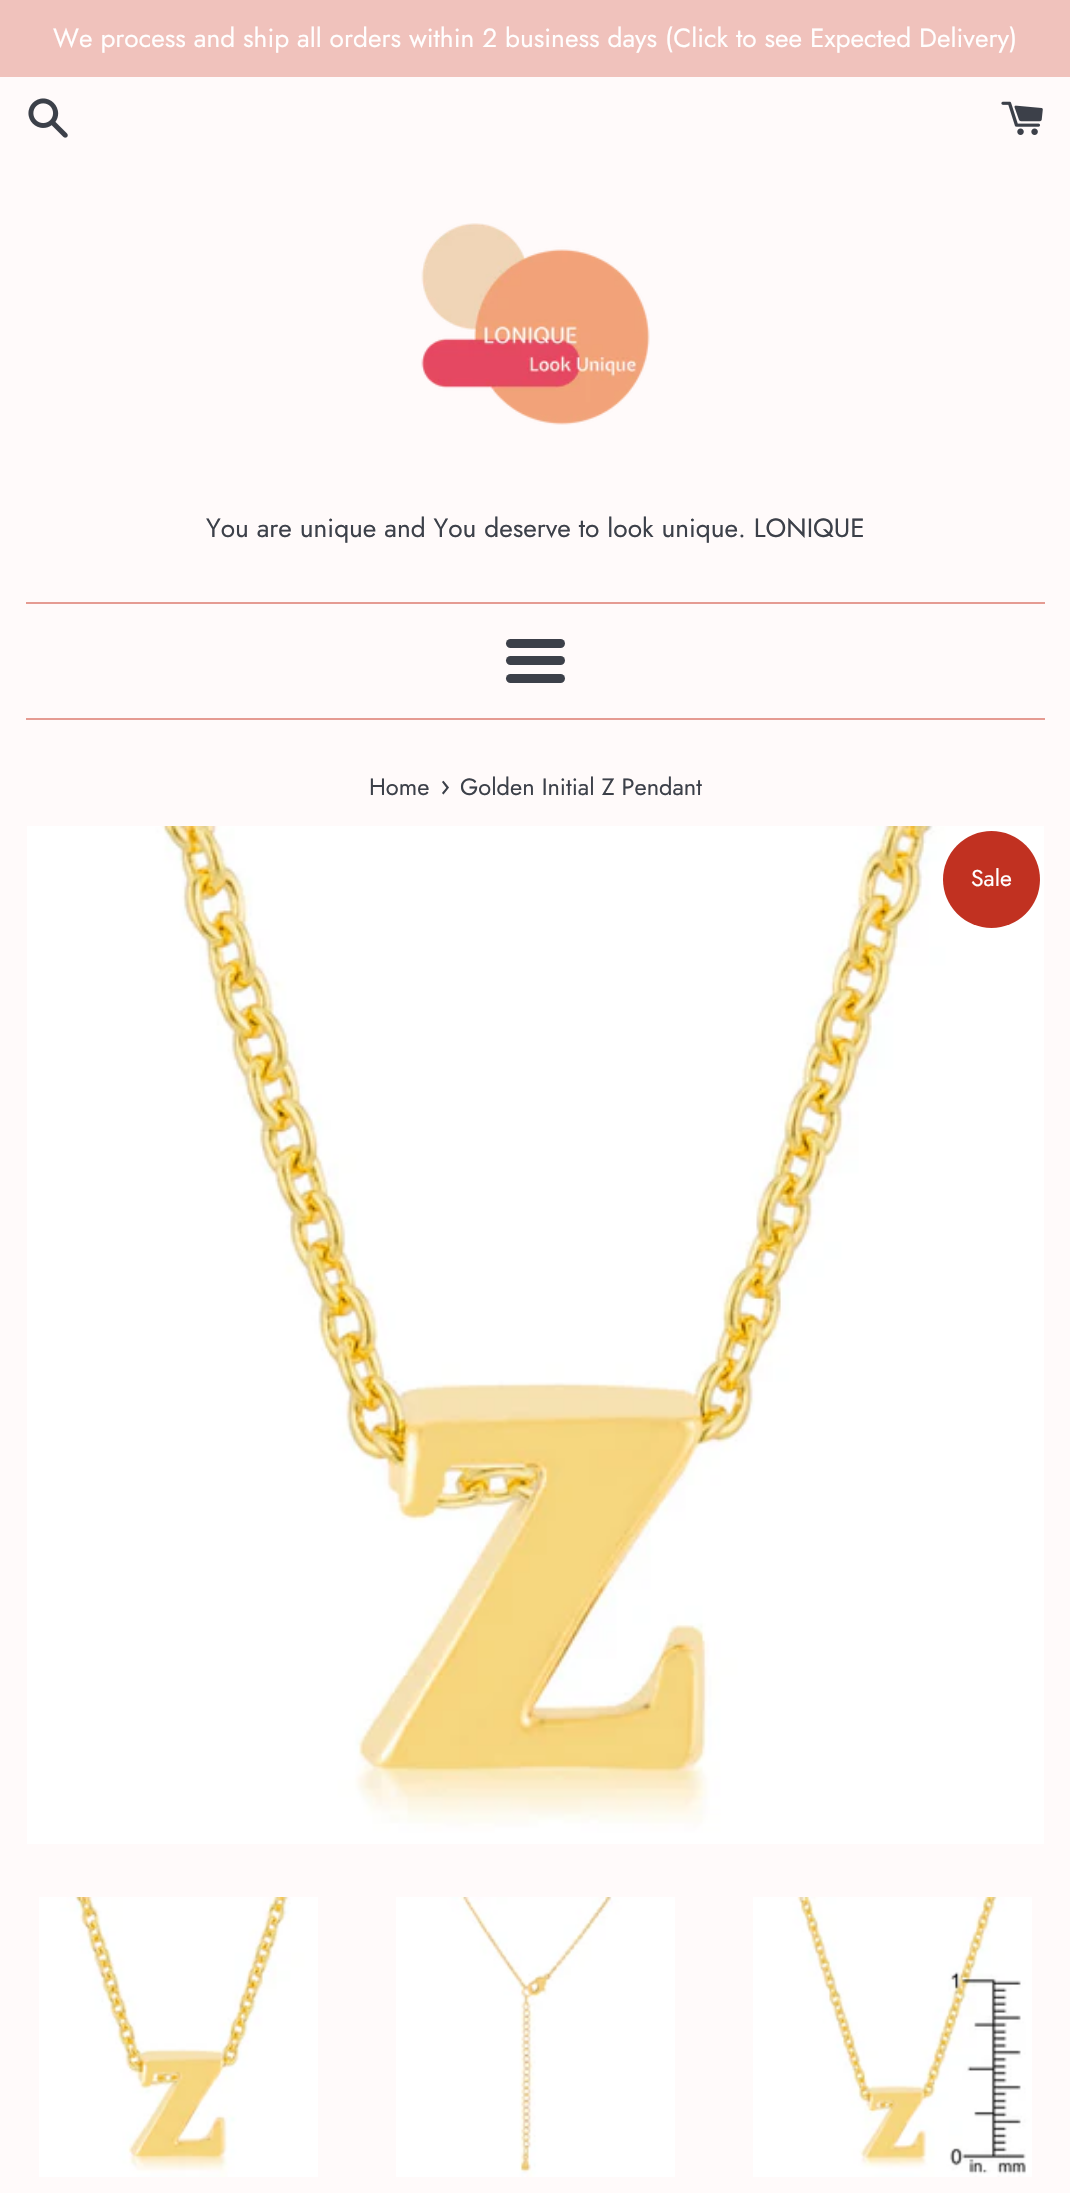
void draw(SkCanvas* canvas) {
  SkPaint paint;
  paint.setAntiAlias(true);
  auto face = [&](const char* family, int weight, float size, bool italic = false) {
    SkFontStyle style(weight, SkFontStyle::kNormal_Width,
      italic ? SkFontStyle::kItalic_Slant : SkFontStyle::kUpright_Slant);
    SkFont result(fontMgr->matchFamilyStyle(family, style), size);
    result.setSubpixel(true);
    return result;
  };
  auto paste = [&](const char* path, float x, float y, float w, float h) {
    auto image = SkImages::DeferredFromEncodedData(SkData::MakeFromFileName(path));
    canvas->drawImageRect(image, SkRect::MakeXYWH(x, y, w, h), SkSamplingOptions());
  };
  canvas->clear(0xfffffafa);
  paint.setColor(0xfff0c2bc);
  canvas->drawRect(SkRect::MakeXYWH(0, 0, 1070, 77), paint);
  paste("img/1.png", 28, 98, 40, 40);
  paste("img/2.png", 1001, 101, 42, 34);
  paste("img/3.png", 421, 223, 229, 202);
  paint.setColor(0xffe59b92);
  canvas->drawRect(SkRect::MakeXYWH(26, 602, 1019, 2), paint);
  paint.setColor(0xff3c4049);
  canvas->drawRoundRect(SkRect::MakeXYWH(506, 639, 59, 9), 4.5f, 4.5f, paint);
  canvas->drawRoundRect(SkRect::MakeXYWH(506, 656, 59, 9), 4.5f, 4.5f, paint);
  canvas->drawRoundRect(SkRect::MakeXYWH(506, 674, 59, 9), 4.5f, 4.5f, paint);
  paint.setColor(0xffe59b92);
  canvas->drawRect(SkRect::MakeXYWH(26, 718, 1019, 2), paint);
  paste("img/4.png", 27, 826, 1017, 1018);
  paint.setColor(0xffc13121);
  canvas->drawCircle(991.5f, 879.5f, 48.5f, paint);
  paste("img/5.png", 39, 1897, 279, 280);
  paste("img/6.png", 396, 1897, 279, 280);
  paste("img/7.png", 753, 1897, 279, 280);
  auto f0 = face("Jost", 400, 26.25f);
  paint.setColor(0xfffffefe);
  canvas->drawString("We process and ship all orders within 2 business days (Click to see Expected Delivery)", 53, 47, f0, paint);
  paint.setColor(0xff3c4049);
  canvas->drawString("You are unique and You deserve to look unique. LONIQUE", 206, 537, f0, paint);
  auto f1 = face("Jost", 400, 23.6f);
  canvas->drawString("Home", 369, 795, f1, paint);
  auto f2 = face("Jost", 400, 29);
  canvas->drawString("›", 440, 795, f2, paint);
  canvas->drawString("Golden Initial Z Pendant", 460, 795, f1, paint);
  auto f3 = face("Jost", 400, 23);
  paint.setColor(0xfffffefe);
  canvas->drawString("Sale", 971, 886, f3, paint);
}
